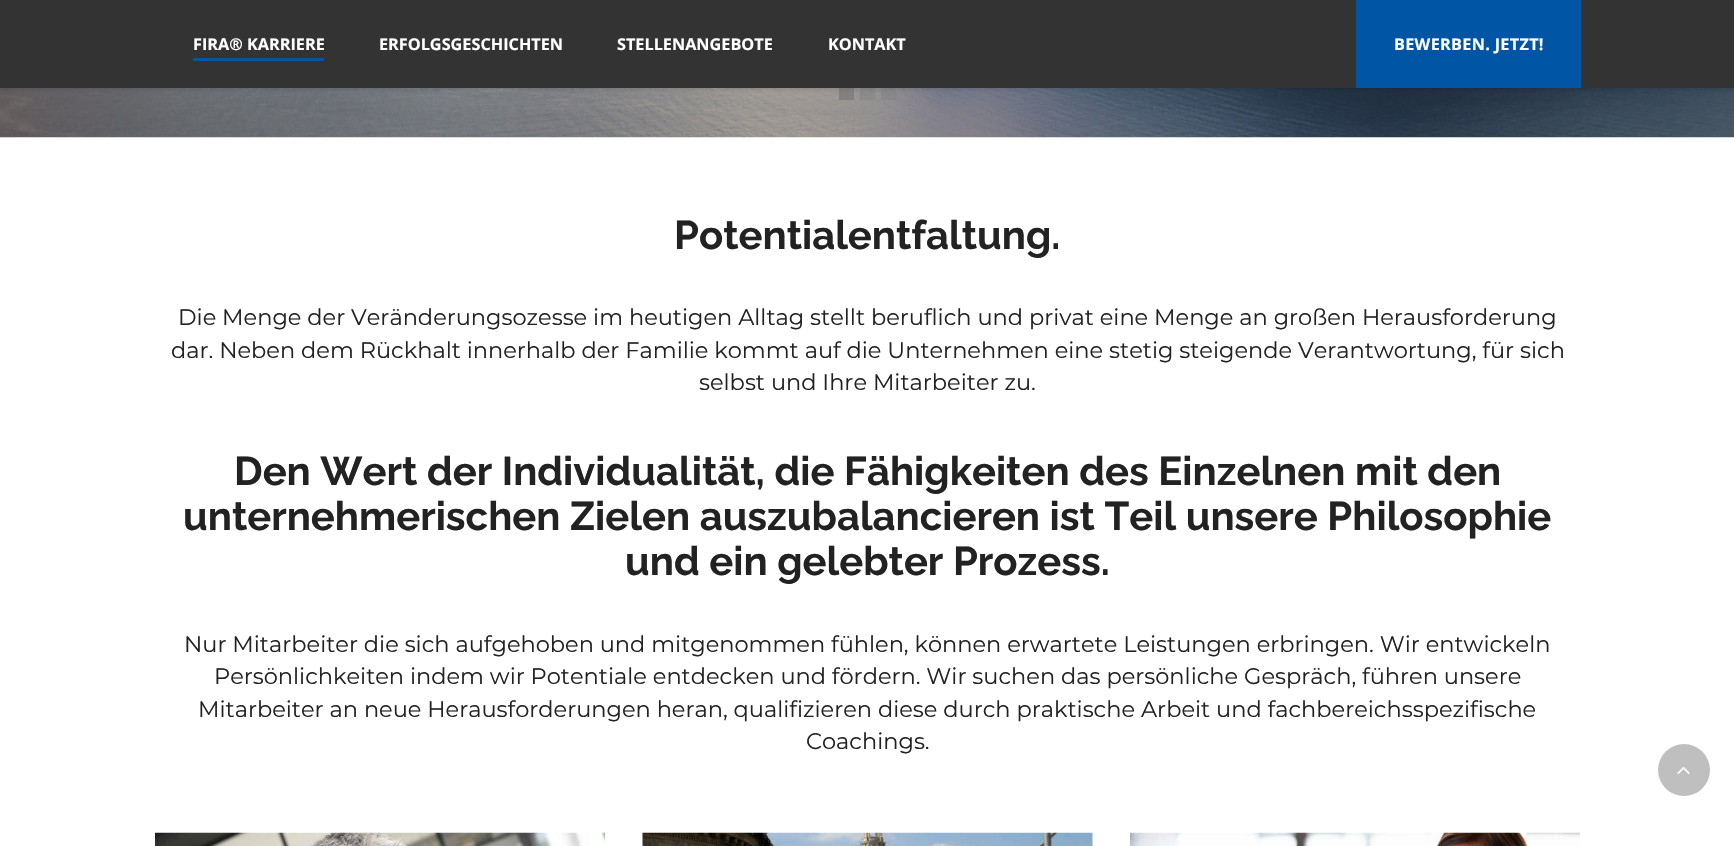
void draw(SkCanvas* canvas) {
  SkPaint paint;
  paint.setAntiAlias(true);
  auto face = [&](const char* family, int weight, float size, bool italic = false) {
    SkFontStyle style(weight, SkFontStyle::kNormal_Width,
      italic ? SkFontStyle::kItalic_Slant : SkFontStyle::kUpright_Slant);
    SkFont result(fontMgr->matchFamilyStyle(family, style), size);
    result.setSubpixel(true);
    return result;
  };
  auto writeSpaced = [&](const char* s, float x, float y, const SkFont& font, const SkPaint& ink, float letter, float word) {
    std::vector<SkGlyphID> glyphs(font.countText(s, strlen(s), SkTextEncoding::kUTF8));
    std::vector<float> xs(glyphs.size());
    font.textToGlyphs(s, strlen(s), SkTextEncoding::kUTF8, glyphs);
    font.getXPos(glyphs, xs, x);
    float extra = 0;
    for (size_t i = 0; i < glyphs.size(); i++) {
      xs[i] += extra;
      extra += letter + word * (glyphs[i] == font.unicharToGlyph(' '));
    }
    canvas->drawTextBlob(SkTextBlob::MakeFromPosHGlyphs(glyphs, xs, y, font), 0, 0, ink);
  };
  auto paste = [&](const char* path, float x, float y, float w, float h) {
    auto image = SkImages::DeferredFromEncodedData(SkData::MakeFromFileName(path));
    canvas->drawImageRect(image, SkRect::MakeXYWH(x, y, w, h), SkSamplingOptions());
  };
  canvas->clear(0xffffffff);
  paste("img/1.png", 0, 88, 1734, 50);
  {
    const struct { float x, y, w, h; SkColor color; } items[] = {
      {839, 88, 15, 12, 0xcf7d7d7d},
      {860, 88, 15, 12, 0x667d7d7d},
      {881, 88, 15, 12, 0x667d7d7d},
    };
    for (auto [x, y, w, h, color] : items) {
      paint.setColor(color);
      canvas->drawRect(SkRect::MakeXYWH(x, y, w, h), paint);
    }
  }
  paint.setColor(0x1a000000);
  paint.setMaskFilter(SkMaskFilter::MakeBlur(kNormal_SkBlurStyle, 2));
  canvas->drawRect(SkRect::MakeXYWH(0, 3, 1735, 87), paint);
  paint.setMaskFilter(nullptr);
  {
    const struct { float x, y, w, h; SkColor color; } items[] = {
      {0, 0, 1734, 88, 0xff333333},
      {193, 58, 131, 3, 0xff0055a4},
      {1356, 0, 225, 88, 0xff0055a4},
    };
    for (auto [x, y, w, h, color] : items) {
      paint.setColor(color);
      canvas->drawRect(SkRect::MakeXYWH(x, y, w, h), paint);
    }
  }
  paste("img/2.png", 155, 832, 450, 14);
  paste("img/3.png", 642, 832, 451, 14);
  paste("img/4.png", 1130, 832, 450, 14);
  paint.setColor(0xffbfbfbf);
  canvas->drawCircle(1684, 770, 26, paint);
  paste("img/5.png", 1677, 766, 13, 8);
  auto f0 = face("Open Sans", 700, 16.25f);
  paint.setColor(0xffffffff);
  {
    const struct { const char* s; float x, y; } items[] = {
      {"FIRA® KARRIERE", 193, 50},
      {"ERFOLGSGESCHICHTEN", 379, 50},
      {"STELLENANGEBOTE", 617, 50},
      {"KONTAKT", 828, 50},
    };
    for (auto [s, x, y] : items) {
      canvas->drawString(s, x, y, f0, paint);
    }
  }
  writeSpaced("BEWERBEN. JETZT!", 1394, 50, f0, paint, 0.3f, 0);
  auto f1 = face("Raleway", 700, 40);
  paint.setColor(0xff222222);
  canvas->drawString("Potentialentfaltung.", 674, 249, f1, paint);
  auto f2 = face("Montserrat", 400, 22.5f);
  {
    const struct { const char* s; float x, y; } items[] = {
      {"Die Menge der Veränderungsozesse im heutigen Alltag stellt beruflich und privat eine Menge an großen Herausforderung", 178, 325},
      {"dar. Neben dem Rückhalt innerhalb der Familie kommt auf die Unternehmen eine stetig steigende Verantwortung, für sich", 171, 358},
      {"selbst und Ihre Mitarbeiter zu.", 699, 390},
    };
    for (auto [s, x, y] : items) {
      canvas->drawString(s, x, y, f2, paint);
    }
  }
  {
    const struct { const char* s; float x, y; } items[] = {
      {"Den Wert der Individualität, die Fähigkeiten des Einzelnen mit den", 234, 485},
      {"unternehmerischen Zielen auszubalancieren ist Teil unsere Philosophie", 183, 530},
      {"und ein gelebter Prozess.", 625, 575},
    };
    for (auto [s, x, y] : items) {
      canvas->drawString(s, x, y, f1, paint);
    }
  }
  {
    const struct { const char* s; float x, y; } items[] = {
      {"Nur Mitarbeiter die sich aufgehoben und mitgenommen fühlen, können erwartete Leistungen erbringen. Wir entwickeln", 184, 652},
      {"Persönlichkeiten indem wir Potentiale entdecken und fördern. Wir suchen das persönliche Gespräch, führen unsere", 214, 684},
      {"Mitarbeiter an neue Herausforderungen heran, qualifizieren diese durch praktische Arbeit und fachbereichsspezifische", 198, 717},
      {"Coachings.", 806, 749},
    };
    for (auto [s, x, y] : items) {
      canvas->drawString(s, x, y, f2, paint);
    }
  }
}
